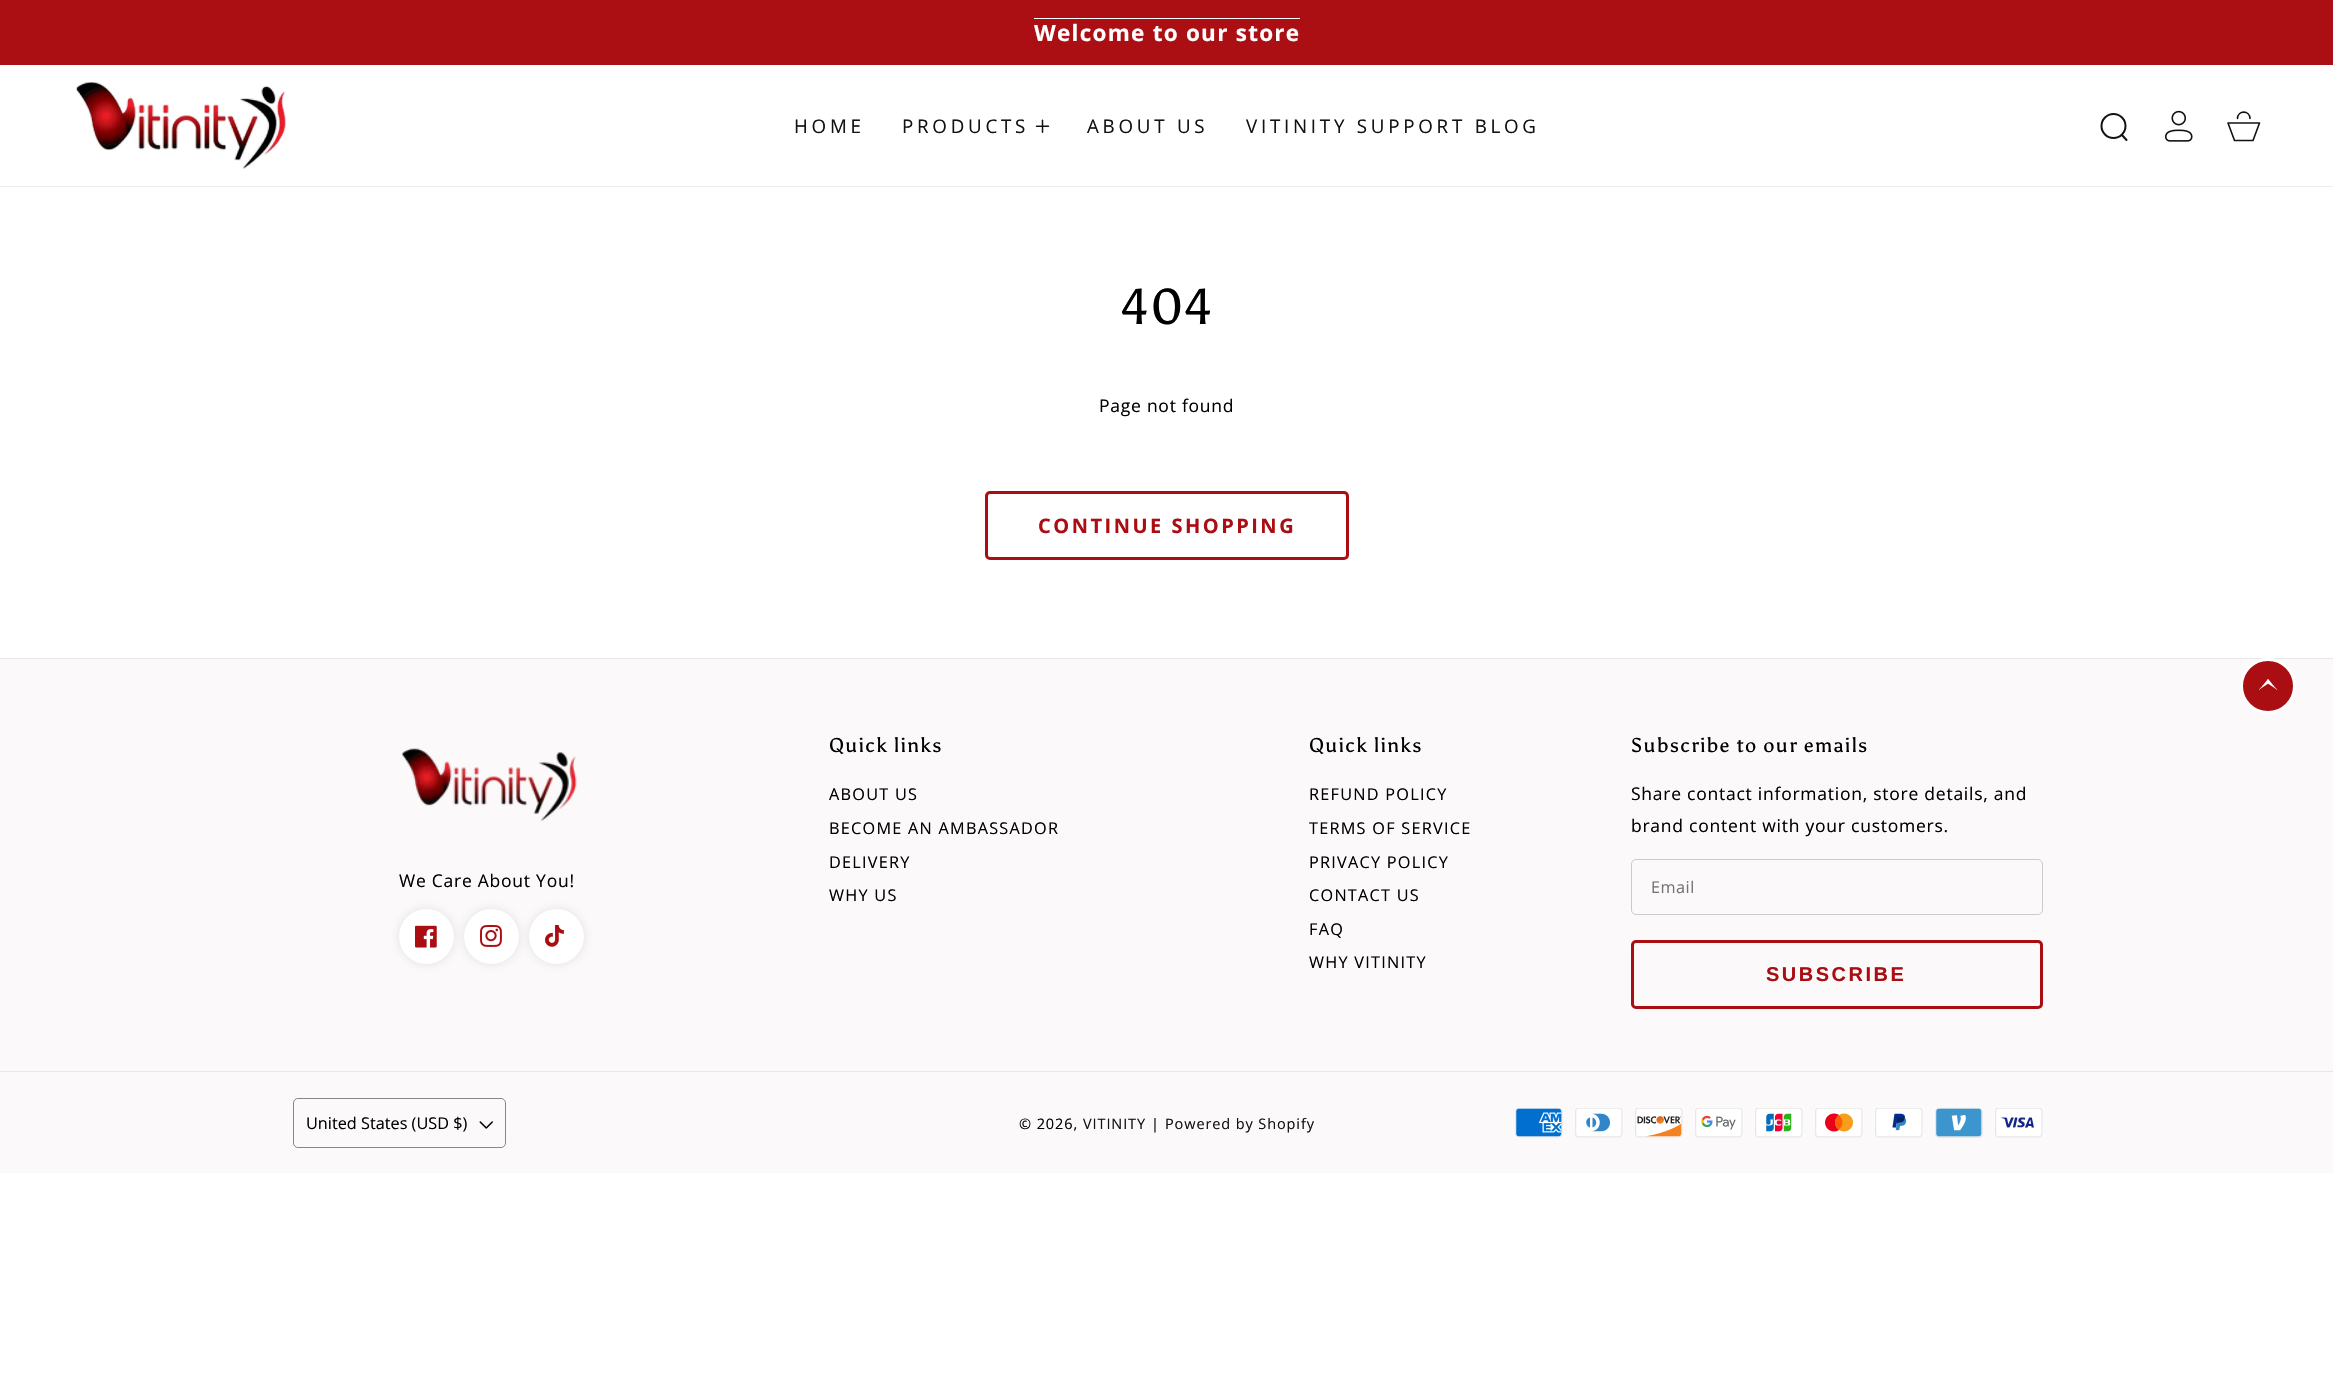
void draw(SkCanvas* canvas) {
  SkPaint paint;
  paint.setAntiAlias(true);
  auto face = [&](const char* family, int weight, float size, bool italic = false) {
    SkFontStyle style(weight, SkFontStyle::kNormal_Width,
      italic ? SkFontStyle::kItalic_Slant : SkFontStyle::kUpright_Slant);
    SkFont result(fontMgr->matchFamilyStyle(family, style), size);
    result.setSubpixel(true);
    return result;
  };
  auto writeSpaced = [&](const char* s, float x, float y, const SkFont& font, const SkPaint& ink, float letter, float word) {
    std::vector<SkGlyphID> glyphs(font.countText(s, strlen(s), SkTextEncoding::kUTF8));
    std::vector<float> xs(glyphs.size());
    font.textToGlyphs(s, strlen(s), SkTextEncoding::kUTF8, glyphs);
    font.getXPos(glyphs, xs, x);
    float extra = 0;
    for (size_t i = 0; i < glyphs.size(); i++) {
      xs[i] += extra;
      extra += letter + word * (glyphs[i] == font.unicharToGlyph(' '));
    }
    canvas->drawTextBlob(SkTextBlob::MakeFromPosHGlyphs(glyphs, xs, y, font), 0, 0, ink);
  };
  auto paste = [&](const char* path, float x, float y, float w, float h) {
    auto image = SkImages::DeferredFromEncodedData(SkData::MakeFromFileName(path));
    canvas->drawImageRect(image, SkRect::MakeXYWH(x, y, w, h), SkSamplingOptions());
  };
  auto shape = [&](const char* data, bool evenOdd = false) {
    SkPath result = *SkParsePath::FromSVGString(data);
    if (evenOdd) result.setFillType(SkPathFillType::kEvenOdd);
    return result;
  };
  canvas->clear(0xffffffff);
  {
    const struct { float x, y, w, h; SkColor color; } items[] = {
      {0, 0, 2333, 65, 0xffab0f14},
      {1034, 18, 266, 1, 0xffffffff},
      {0, 186, 2333, 1, 0xffececec},
    };
    for (auto [x, y, w, h, color] : items) {
      paint.setColor(color);
      canvas->drawRect(SkRect::MakeXYWH(x, y, w, h), paint);
    }
  }
  paste("img/1.png", 75, 82, 211, 87);
  paste("img/2.png", 76, 82, 210, 87);
  paste("img/3.png", 1035, 119, 15, 14);
  paint.setStroke(true);
  paint.setStrokeWidth(2);
  paint.setColor(0xff121212);
  canvas->drawCircle(2113.5f, 126, 12, paint);
  paint.setStrokeCap(SkPaint::kRound_Cap);
  paint.setStrokeJoin(SkPaint::kRound_Join);
  canvas->drawPath(shape("M2122 135L2126.5 140"), paint);
  paste("img/4.png", 2164, 110, 29, 32);
  paint.setStrokeWidth(1.6f);
  canvas->drawPath(shape("M2228 123H2259.5L2253 140.5H2234.5ZM2250 118.5C2250 110 2237.5 110 2237.5 118.5"), paint);
  paint.setStrokeWidth(3);
  paint.setStrokeCap(SkPaint::kButt_Cap);
  paint.setStrokeJoin(SkPaint::kMiter_Join);
  paint.setColor(0xffaa0e13);
  canvas->drawRoundRect(SkRect::MakeXYWH(986.5f, 492.5f, 361, 66), 3.5f, 3.5f, paint);
  paint.setStroke(false);
  paint.setColor(0xfffbf9f9);
  canvas->drawRect(SkRect::MakeXYWH(0, 659, 2333, 514), paint);
  paint.setColor(0xffe8e7e7);
  canvas->drawRect(SkRect::MakeXYWH(0, 658, 2333, 1), paint);
  paint.setColor(0xffaa0e13);
  canvas->drawCircle(2268, 686, 26.5f, paint);
  paint.setStroke(true);
  paint.setColor(0xffffffff);
  canvas->drawCircle(2268, 686, 26.5f, paint);
  paste("img/5.png", 2259, 678, 19, 12);
  paste("img/6.png", 401, 748, 176, 74);
  paint.setStroke(false);
  paint.setColor(0x1a121212);
  paint.setMaskFilter(SkMaskFilter::MakeBlur(kNormal_SkBlurStyle, 5.5f));
  canvas->drawRoundRect(SkRect::MakeXYWH(399, 909, 55, 55), 27.5f, 27.5f, paint);
  paint.setMaskFilter(nullptr);
  paint.setColor(0xffffffff);
  canvas->drawCircle(426.5f, 936.5f, 27.5f, paint);
  paste("img/7.png", 415, 925, 22, 23);
  paint.setColor(0x1a121212);
  paint.setMaskFilter(SkMaskFilter::MakeBlur(kNormal_SkBlurStyle, 5.5f));
  canvas->drawRoundRect(SkRect::MakeXYWH(464, 909, 55, 55), 27.5f, 27.5f, paint);
  paint.setMaskFilter(nullptr);
  paint.setColor(0xffffffff);
  canvas->drawCircle(491.5f, 936.5f, 27.5f, paint);
  paste("img/8.png", 480, 925, 22, 22);
  paint.setColor(0x1a121212);
  paint.setMaskFilter(SkMaskFilter::MakeBlur(kNormal_SkBlurStyle, 5.5f));
  canvas->drawRoundRect(SkRect::MakeXYWH(529, 909, 55, 55), 27.5f, 27.5f, paint);
  paint.setMaskFilter(nullptr);
  paint.setColor(0xffffffff);
  canvas->drawCircle(556.5f, 936.5f, 27.5f, paint);
  paste("img/9.png", 545, 925, 19, 22);
  paint.setStroke(true);
  paint.setStrokeWidth(1);
  paint.setColor(0xffcccbcb);
  canvas->drawRoundRect(SkRect::MakeXYWH(1631.5f, 859.5f, 411, 55), 4.5f, 4.5f, paint);
  paint.setStrokeWidth(3);
  paint.setColor(0xffaa0e13);
  canvas->drawRoundRect(SkRect::MakeXYWH(1632.5f, 941.5f, 409, 66), 3.5f, 3.5f, paint);
  paint.setStroke(false);
  paint.setColor(0xffe8e7e7);
  canvas->drawRect(SkRect::MakeXYWH(0, 1071, 2333, 1), paint);
  paste("img/10.png", 479, 1121, 14, 8);
  paint.setStroke(true);
  paint.setStrokeWidth(1);
  paint.setColor(0xff878686);
  canvas->drawRoundRect(SkRect::MakeXYWH(293.5f, 1098.5f, 212, 49), 4.5f, 4.5f, paint);
  paste("img/11.png", 1515, 1108, 48, 30);
  paste("img/12.png", 1575, 1108, 48, 30);
  paste("img/13.png", 1635, 1108, 48, 30);
  paste("img/14.png", 1695, 1108, 48, 30);
  paste("img/15.png", 1755, 1108, 48, 30);
  paste("img/16.png", 1815, 1108, 48, 30);
  paste("img/17.png", 1875, 1108, 48, 30);
  paste("img/18.png", 1935, 1108, 48, 30);
  paste("img/19.png", 1995, 1108, 48, 30);
  auto f0 = face("Open Sans", 700, 22.5f);
  paint.setStroke(false);
  paint.setColor(0xffffffff);
  writeSpaced("Welcome to our store", 1034, 41, f0, paint, 1.25f, 0);
  auto f1 = face("Open Sans", 400, 18.75f);
  paint.setColor(0xff121212);
  {
    const struct { const char* s; float x, y; } items[] = {
      {"HOME", 794, 133},
      {"PRODUCTS", 902, 133},
      {"ABOUT US", 1087, 133},
      {"VITINITY SUPPORT BLOG", 1246, 133},
    };
    for (auto [s, x, y] : items) {
      writeSpaced(s, x, y, f1, paint, 3.75f, 0);
    }
  }
  auto f2 = face("Asul", 400, 50);
  paint.setColor(0xff000000);
  writeSpaced("404", 1121, 324, f2, paint, 0.75f, 0);
  auto f3 = face("Open Sans", 400, 17.5f);
  writeSpaced("Page not found", 1099, 412, f3, paint, 0.75f, 0);
  auto f4 = face("Open Sans", 700, 20);
  paint.setColor(0xffaa0e13);
  writeSpaced("CONTINUE SHOPPING", 1038, 533, f4, paint, 2.5f, 0);
  paint.setColor(0xff000000);
  writeSpaced("We Care About You!", 399, 887, f3, paint, 0.75f, 0);
  auto f5 = face("Asul", 400, 20);
  writeSpaced("Quick links", 829, 752, f5, paint, 1.25f, 0);
  auto f6 = face("Open Sans", 400, 16.25f);
  {
    const struct { const char* s; float x, y; } items[] = {
      {"ABOUT US", 829, 800},
      {"BECOME AN AMBASSADOR", 829, 834},
      {"DELIVERY", 829, 868},
      {"WHY US", 829, 901},
    };
    for (auto [s, x, y] : items) {
      writeSpaced(s, x, y, f6, paint, 1.25f, 0);
    }
  }
  writeSpaced("Quick links", 1309, 752, f5, paint, 1.25f, 0);
  {
    const struct { const char* s; float x, y; } items[] = {
      {"REFUND POLICY", 1309, 800},
      {"TERMS OF SERVICE", 1309, 834},
      {"PRIVACY POLICY", 1309, 868},
      {"CONTACT US", 1309, 901},
      {"FAQ", 1309, 935},
      {"WHY VITINITY", 1309, 968},
    };
    for (auto [s, x, y] : items) {
      writeSpaced(s, x, y, f6, paint, 1.25f, 0);
    }
  }
  writeSpaced("Subscribe to our emails", 1631, 752, f5, paint, 1.25f, 0);
  writeSpaced("Share contact information, store details, and", 1631, 800, f3, paint, 0.75f, 0);
  writeSpaced("brand content with your customers.", 1631, 832, f3, paint, 0.75f, 0);
  paint.setColor(0xff757575);
  writeSpaced("Email", 1651, 893, f6, paint, 0.5f, 0);
  auto f7 = face("Liberation Sans", 700, 20);
  paint.setColor(0xffaa0e13);
  writeSpaced("SUBSCRIBE", 1766, 981, f7, paint, 2.5f, 0);
  paint.setColor(0xff000000);
  canvas->drawString("United States (USD $)", 306, 1129, f6, paint);
  auto f8 = face("Open Sans", 400, 14.5f);
  writeSpaced("© 2026,", 1019, 1129, f8, paint, 0.9f, 0);
  paint.setColor(0xff121212);
  writeSpaced("VITINITY", 1083, 1129, f8, paint, 0.9f, 0);
  paint.setColor(0xff000000);
  writeSpaced("|", 1151, 1129, f8, paint, 0.9f, 0);
  paint.setColor(0xff121212);
  writeSpaced("Powered by Shopify", 1165, 1129, f8, paint, 0.9f, 0);
}
